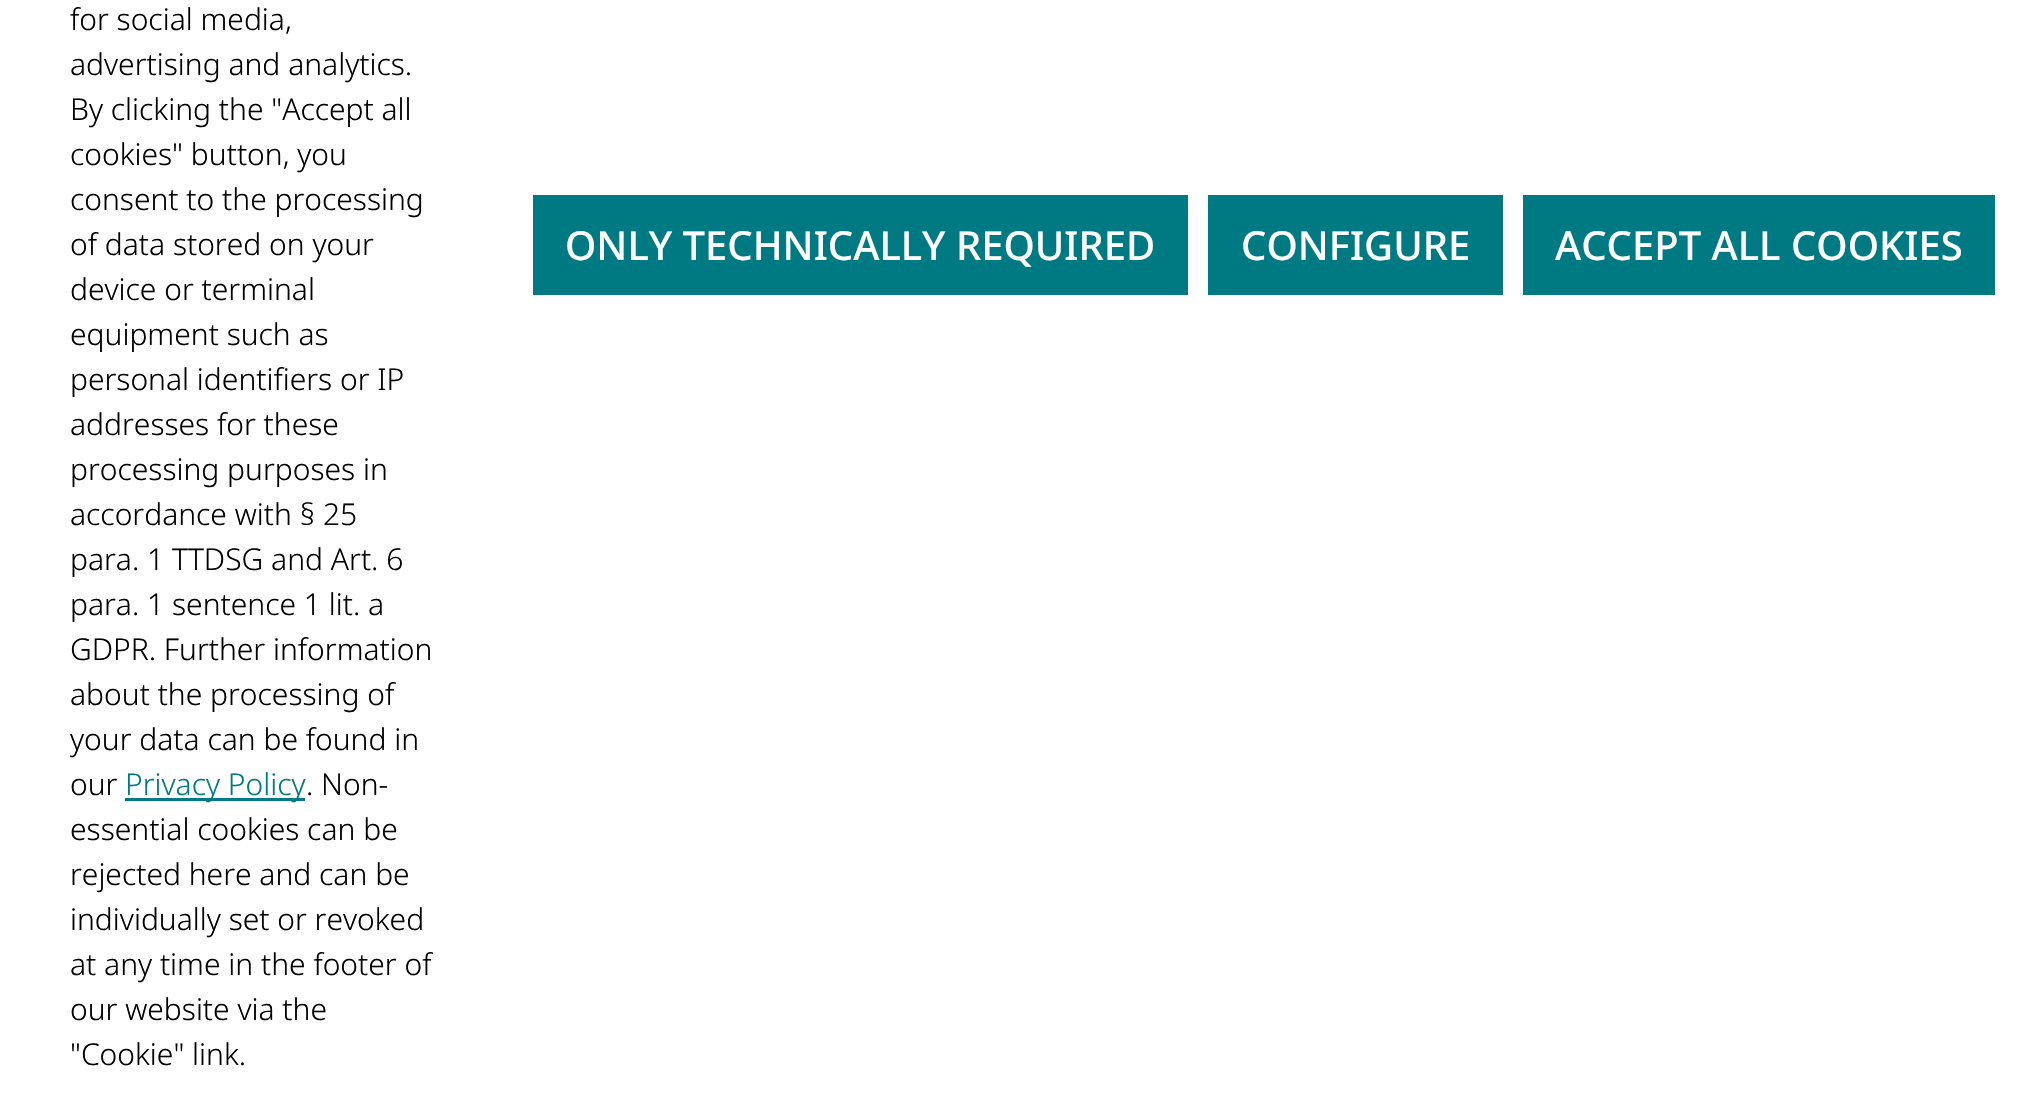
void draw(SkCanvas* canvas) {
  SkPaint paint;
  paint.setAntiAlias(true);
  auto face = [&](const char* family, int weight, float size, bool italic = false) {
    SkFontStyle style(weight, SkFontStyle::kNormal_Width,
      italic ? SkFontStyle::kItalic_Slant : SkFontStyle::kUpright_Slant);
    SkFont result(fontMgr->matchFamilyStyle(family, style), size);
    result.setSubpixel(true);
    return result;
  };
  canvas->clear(0xffffffff);
  {
    const struct { float x, y, w, h; SkColor color; } items[] = {
      {125, 798, 180, 3, 0xff007a82},
      {533, 195, 655, 100, 0xff007a82},
      {1208, 195, 295, 100, 0xff007a82},
      {1523, 195, 472, 100, 0xff007a82},
    };
    for (auto [x, y, w, h, color] : items) {
      paint.setColor(color);
      canvas->drawRect(SkRect::MakeXYWH(x, y, w, h), paint);
    }
  }
  auto f0 = face("Noto Sans", 300, 30);
  paint.setColor(0xff000000);
  {
    const struct { const char* s; float x, y; } items[] = {
      {"for social media,", 70, 30},
      {"advertising and analytics.", 70, 75},
      {"By clicking the \"Accept all", 70, 120},
      {"cookies\" button, you", 70, 165},
      {"consent to the processing", 70, 210},
      {"of data stored on your", 70, 255},
      {"device or terminal", 70, 300},
      {"equipment such as", 70, 345},
      {"personal identifiers or IP", 70, 390},
      {"addresses for these", 70, 435},
      {"processing purposes in", 70, 480},
      {"accordance with § 25", 70, 525},
      {"para. 1 TTDSG and Art. 6", 70, 570},
      {"para. 1 sentence 1 lit. a", 70, 615},
      {"GDPR. Further information", 70, 660},
      {"about the processing of", 70, 705},
      {"your data can be found in", 70, 750},
      {"our", 70, 795},
    };
    for (auto [s, x, y] : items) {
      canvas->drawString(s, x, y, f0, paint);
    }
  }
  paint.setColor(0xff007a82);
  canvas->drawString("Privacy Policy", 125, 795, f0, paint);
  paint.setColor(0xff000000);
  {
    const struct { const char* s; float x, y; } items[] = {
      {". Non-", 306, 795},
      {"essential cookies can be", 70, 840},
      {"rejected here and can be", 70, 885},
      {"individually set or revoked", 70, 930},
      {"at any time in the footer of", 70, 975},
      {"our website via the", 70, 1020},
      {"\"Cookie\" link.", 70, 1065},
    };
    for (auto [s, x, y] : items) {
      canvas->drawString(s, x, y, f0, paint);
    }
  }
  auto f1 = face("Noto Sans", 500, 40);
  paint.setColor(0xffffffff);
  {
    const struct { const char* s; float x, y; } items[] = {
      {"ONLY TECHNICALLY REQUIRED", 565, 260},
      {"CONFIGURE", 1241, 260},
      {"ACCEPT ALL COOKIES", 1555, 260},
    };
    for (auto [s, x, y] : items) {
      canvas->drawString(s, x, y, f1, paint);
    }
  }
}
